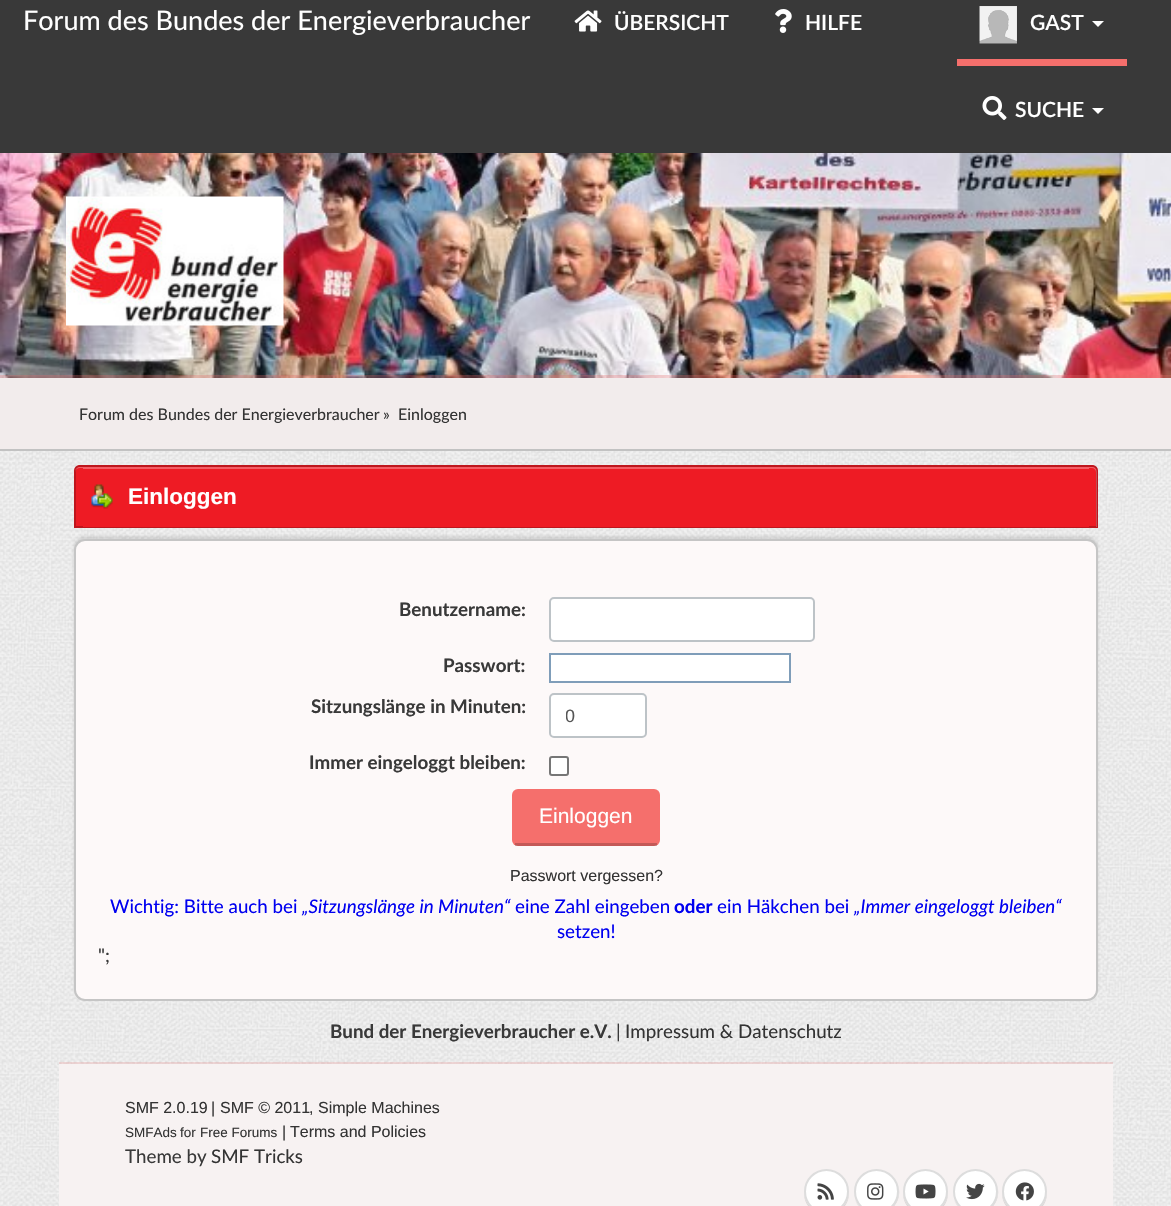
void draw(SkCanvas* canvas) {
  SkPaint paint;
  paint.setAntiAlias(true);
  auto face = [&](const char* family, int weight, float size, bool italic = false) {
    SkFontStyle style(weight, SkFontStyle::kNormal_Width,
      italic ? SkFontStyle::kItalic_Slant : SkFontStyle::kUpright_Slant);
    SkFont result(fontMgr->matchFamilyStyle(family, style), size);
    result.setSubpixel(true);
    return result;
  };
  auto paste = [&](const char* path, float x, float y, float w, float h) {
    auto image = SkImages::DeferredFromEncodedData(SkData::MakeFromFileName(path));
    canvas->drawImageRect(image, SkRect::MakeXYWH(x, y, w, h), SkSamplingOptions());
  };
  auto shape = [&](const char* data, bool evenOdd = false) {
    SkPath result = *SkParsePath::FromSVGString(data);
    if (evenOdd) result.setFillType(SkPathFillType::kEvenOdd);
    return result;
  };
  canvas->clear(0xfff2f2f2);
  paste("img/1.png", 0, 451, 1171, 755);
  paint.setColor(0xff393939);
  canvas->drawRect(SkRect::MakeXYWH(0, 0, 1171, 153), paint);
  paste("img/2.png", 574, 10, 28, 22);
  paste("img/3.png", 775, 9, 17, 24);
  paint.setColor(0xfff56f6c);
  canvas->drawRect(SkRect::MakeXYWH(957, 59, 170, 7), paint);
  paste("img/4.png", 979, 6, 38, 38);
  paint.setColor(0xffffffff);
  canvas->drawPath(shape("M1092 21H1104L1098 27Z"), paint);
  paste("img/5.png", 982, 96, 25, 24);
  canvas->drawPath(shape("M1092 108H1104L1098 114Z"), paint);
  paste("img/6.png", 0, 153, 1171, 225);
  paste("img/7.png", 66, 196, 218, 130);
  paint.setColor(0x4de56b69);
  canvas->drawPath(shape("M0 375V378H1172V447V375Z"), paint);
  paint.setColor(0xfff2ecec);
  canvas->drawRect(SkRect::MakeXYWH(0, 378, 1171, 71), paint);
  paint.setColor(0xffc2c2c2);
  canvas->drawRect(SkRect::MakeXYWH(0, 449, 1171, 2), paint);
  paint.setColor(0xffee1b24);
  canvas->drawPath(shape("M80 465H1092C1095.5 465 1098 467.5 1098 471V528H74V471C74 467.5 76.5 465 80 465Z"), paint);
  paint.setColor(0xfff35f66);
  canvas->drawPath(shape("M80 468H1092C1094 468 1096 470 1096 472V527H1097V472C1097 469 1095 467 1092 467H80C77 467 75 469 75 472C75 470 77 468 80 468Z"), paint);
  paint.setStroke(true);
  paint.setStrokeWidth(2);
  paint.setColor(0x33000000);
  canvas->drawPath(shape("M80 466H1092C1095 466 1097 468 1097 471V527H75V471C75 468 77 466 80 466Z"), paint);
  paint.setStroke(false);
  paint.setColor(0xffee1b24);
  canvas->drawRect(SkRect::MakeXYWH(83, 526, 1006, 1), paint);
  paint.setColor(0xfff35f66);
  canvas->drawRect(SkRect::MakeXYWH(83, 468, 1006, 1), paint);
  paste("img/8.png", 91, 484, 22, 25);
  paint.setColor(0x1a000000);
  paint.setMaskFilter(SkMaskFilter::MakeBlur(kNormal_SkBlurStyle, 1.5f));
  canvas->drawRoundRect(SkRect::MakeXYWH(74, 536, 1024, 462), 11, 11, paint);
  paint.setMaskFilter(nullptr);
  paint.setColor(0xfffdf9f9);
  canvas->drawRoundRect(SkRect::MakeXYWH(75, 540, 1022, 460), 10, 10, paint);
  paint.setStroke(true);
  paint.setColor(0xffc5c5c5);
  canvas->drawRoundRect(SkRect::MakeXYWH(75, 540, 1022, 460), 10, 10, paint);
  paint.setStroke(false);
  paint.setColor(0xffffffff);
  canvas->drawRoundRect(SkRect::MakeXYWH(550, 598, 264, 43), 4, 4, paint);
  paint.setStroke(true);
  paint.setColor(0xffbdc3c7);
  canvas->drawRoundRect(SkRect::MakeXYWH(550, 598, 264, 43), 4, 4, paint);
  paint.setStroke(false);
  paint.setColor(0xffffffff);
  canvas->drawRect(SkRect::MakeXYWH(550, 654, 240, 28), paint);
  paint.setStroke(true);
  paint.setColor(0xff7f9db9);
  canvas->drawRect(SkRect::MakeXYWH(550, 654, 240, 28), paint);
  paint.setStroke(false);
  paint.setColor(0xffffffff);
  canvas->drawRoundRect(SkRect::MakeXYWH(550, 694, 96, 43), 4, 4, paint);
  paint.setStroke(true);
  paint.setColor(0xffbdc3c7);
  canvas->drawRoundRect(SkRect::MakeXYWH(550, 694, 96, 43), 4, 4, paint);
  paint.setStroke(false);
  paint.setColor(0xffffffff);
  canvas->drawRoundRect(SkRect::MakeXYWH(550, 757, 18, 18), 2, 2, paint);
  paint.setStroke(true);
  paint.setColor(0xff767676);
  canvas->drawRoundRect(SkRect::MakeXYWH(550, 757, 18, 18), 2, 2, paint);
  paint.setStroke(false);
  paint.setColor(0xfff56f6c);
  canvas->drawRoundRect(SkRect::MakeXYWH(512, 789, 148, 57), 6, 6, paint);
  {
    const struct { float x, y, w, h; SkColor color; } items[] = {
      {515, 843, 142, 3, 0x33000000},
      {59, 1062, 1054, 2, 0x33e56b69},
      {59, 1064, 1054, 142, 0xfff7f2f2},
    };
    for (auto [x, y, w, h, color] : items) {
      paint.setColor(color);
      canvas->drawRect(SkRect::MakeXYWH(x, y, w, h), paint);
    }
  }
  paint.setColor(0xffdad6d6);
  canvas->drawPath(shape("M804 1192C803 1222 850 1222 849 1192C848 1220 805 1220 804 1192Z"), paint);
  paint.setColor(0xffffffff);
  canvas->drawCircle(826.5f, 1191.5f, 21.5f, paint);
  paint.setStroke(true);
  paint.setColor(0xffdddddd);
  canvas->drawCircle(826.5f, 1191.5f, 21.5f, paint);
  paste("img/9.png", 817, 1183, 17, 17);
  paint.setStroke(false);
  paint.setColor(0xffdad6d6);
  canvas->drawPath(shape("M855 1199C856 1203 859 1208 863 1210C881 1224 905 1205 898 1185C906 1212 865 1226 855 1199Z"), paint);
  paint.setColor(0xffffffff);
  canvas->drawCircle(876.5f, 1191.5f, 21.5f, paint);
  paint.setStroke(true);
  paint.setColor(0xffdddddd);
  canvas->drawCircle(876.5f, 1191.5f, 21.5f, paint);
  paste("img/10.png", 867, 1183, 17, 17);
  paint.setStroke(false);
  paint.setColor(0xffdad6d6);
  canvas->drawPath(shape("M903 1192C902 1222 949 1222 948 1192C947 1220 904 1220 903 1192Z"), paint);
  paint.setColor(0xffffffff);
  canvas->drawCircle(925.5f, 1191.5f, 21.5f, paint);
  paint.setStroke(true);
  paint.setColor(0xffdddddd);
  canvas->drawCircle(925.5f, 1191.5f, 21.5f, paint);
  paste("img/11.png", 915, 1184, 21, 15);
  paint.setStroke(false);
  paint.setColor(0xffdad6d6);
  canvas->drawPath(shape("M954 1199C955 1203 958 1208 962 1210C980 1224 1004 1205 997 1185C1005 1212 964 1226 954 1199Z"), paint);
  paint.setColor(0xffffffff);
  canvas->drawCircle(975.5f, 1191.5f, 21.5f, paint);
  paint.setStroke(true);
  paint.setColor(0xffdddddd);
  canvas->drawCircle(975.5f, 1191.5f, 21.5f, paint);
  paste("img/12.png", 966, 1183, 19, 17);
  paint.setStroke(false);
  paint.setColor(0xffdad6d6);
  canvas->drawPath(shape("M1002 1192C1001 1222 1048 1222 1047 1192C1046 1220 1003 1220 1002 1192Z"), paint);
  paint.setColor(0xffffffff);
  canvas->drawCircle(1024.5f, 1191.5f, 21.5f, paint);
  paint.setStroke(true);
  paint.setColor(0xffdddddd);
  canvas->drawCircle(1024.5f, 1191.5f, 21.5f, paint);
  paste("img/13.png", 1015, 1182, 19, 19);
  auto f0 = face("Lato", 400, 27);
  paint.setStroke(false);
  paint.setColor(0xffffffff);
  canvas->drawString("Forum des Bundes der Energieverbraucher", 23, 30, f0, paint);
  auto f1 = face("Lato", 600, 21);
  {
    const struct { const char* s; float x, y; } items[] = {
      {"ÜBERSICHT", 614, 30},
      {"HILFE", 805, 30},
      {"GAST", 1030, 30},
      {"SUCHE", 1015, 117},
    };
    for (auto [s, x, y] : items) {
      canvas->drawString(s, x, y, f1, paint);
    }
  }
  auto f2 = face("Lato", 400, 16);
  paint.setColor(0xff333333);
  canvas->drawString("Forum des Bundes der Energieverbraucher", 79, 420, f2, paint);
  paint.setColor(0xff393939);
  canvas->drawString("»", 383, 420, f2, paint);
  paint.setColor(0xff333333);
  canvas->drawString("Einloggen", 398, 420, f2, paint);
  auto f3 = face("Liberation Sans", 700, 22.5f);
  paint.setColor(0xffffffff);
  canvas->drawString("Einloggen", 128, 504, f3, paint);
  auto f4 = face("Lato", 700, 18.75f);
  paint.setColor(0xff393939);
  {
    const struct { const char* s; float x, y; } items[] = {
      {"Benutzername:", 399, 616},
      {"Passwort:", 443, 672},
      {"Sitzungslänge in Minuten:", 311, 713},
    };
    for (auto [s, x, y] : items) {
      canvas->drawString(s, x, y, f4, paint);
    }
  }
  canvas->save();
  canvas->clipRect(SkRect::MakeXYWH(566, 705, 64, 21));
  auto f5 = face("Liberation Sans", 400, 18);
  paint.setColor(0xff555555);
  canvas->drawString("0", 565, 722, f5, paint);
  canvas->restore();
  paint.setColor(0xff393939);
  canvas->drawString("Immer eingeloggt bleiben:", 309, 769, f4, paint);
  auto f6 = face("Liberation Sans", 400, 21);
  paint.setColor(0xffffffff);
  canvas->drawString("Einloggen", 539, 823, f6, paint);
  auto f7 = face("Liberation Sans", 400, 16);
  paint.setColor(0xff333333);
  canvas->drawString("Passwort vergessen?", 510, 881, f7, paint);
  auto f8 = face("Lato", 400, 18.75f);
  paint.setColor(0xff0000f0);
  canvas->drawString("Wichtig: Bitte auch bei", 110, 913, f8, paint);
  auto f9 = face("Lato", 400, 18.75f, true);
  canvas->drawString("„Sitzungslänge in Minuten“", 302, 913, f9, paint);
  canvas->drawString("eine Zahl eingeben", 515, 913, f8, paint);
  canvas->drawString("oder", 674, 913, f4, paint);
  canvas->drawString("ein Häkchen bei", 717, 913, f8, paint);
  canvas->drawString("„Immer eingeloggt bleiben“", 854, 913, f9, paint);
  canvas->drawString("setzen!", 557, 938, f8, paint);
  paint.setColor(0xff393939);
  canvas->drawString("\";", 98, 962, f8, paint);
  canvas->drawString("Bund der Energieverbraucher e.V.", 330, 1038, f4, paint);
  canvas->drawString("|", 616, 1038, f8, paint);
  paint.setColor(0xff333333);
  canvas->drawString("Impressum & Datenschutz", 625, 1038, f8, paint);
  canvas->drawString("SMF 2.0.19", 125, 1113, f7, paint);
  paint.setColor(0xff393939);
  canvas->drawString("|", 211, 1113, f7, paint);
  paint.setColor(0xff333333);
  canvas->drawString("SMF © 2011", 220, 1113, f7, paint);
  paint.setColor(0xff393939);
  canvas->drawString(",", 309, 1113, f7, paint);
  paint.setColor(0xff333333);
  canvas->drawString("Simple Machines", 318, 1113, f7, paint);
  auto f10 = face("Liberation Sans", 400, 13.5f);
  canvas->drawString("SMFAds", 125, 1137, f10, paint);
  paint.setColor(0xff393939);
  canvas->drawString("for", 180, 1137, f10, paint);
  paint.setColor(0xff333333);
  canvas->drawString("Free Forums", 200, 1137, f10, paint);
  paint.setColor(0xff393939);
  canvas->drawString("|", 282, 1137, f7, paint);
  paint.setColor(0xff333333);
  canvas->drawString("Terms and Policies", 290, 1137, f7, paint);
  paint.setColor(0xff393939);
  canvas->drawString("Theme by", 125, 1163, f8, paint);
  paint.setColor(0xff333333);
  canvas->drawString("SMF Tricks", 211, 1163, f8, paint);
}
